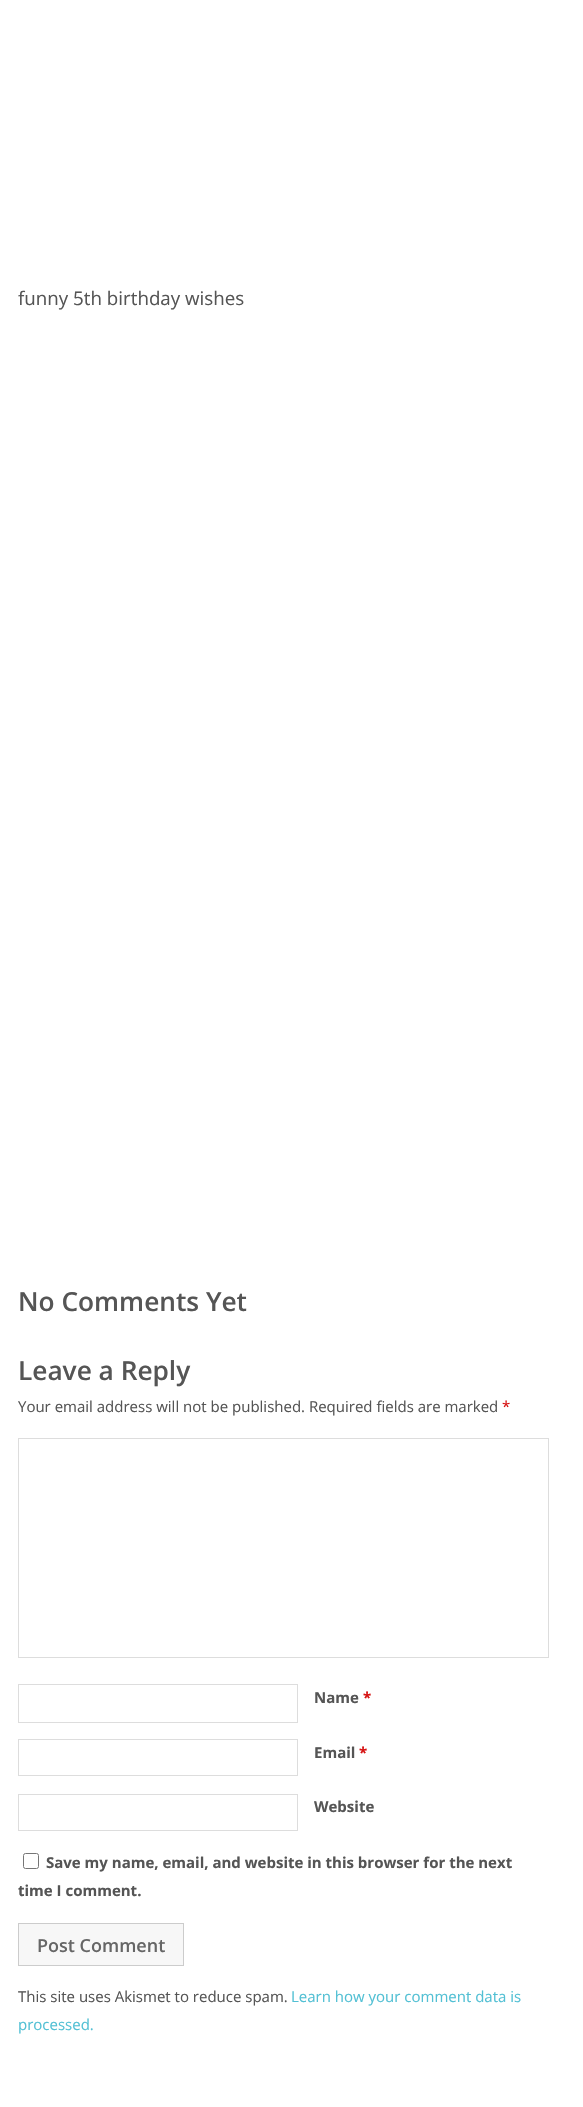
void draw(SkCanvas* canvas) {
  SkPaint paint;
  paint.setAntiAlias(true);
  auto face = [&](const char* family, int weight, float size, bool italic = false) {
    SkFontStyle style(weight, SkFontStyle::kNormal_Width,
      italic ? SkFontStyle::kItalic_Slant : SkFontStyle::kUpright_Slant);
    SkFont result(fontMgr->matchFamilyStyle(family, style), size);
    result.setSubpixel(true);
    return result;
  };
  canvas->clear(0xffffffff);
  paint.setStroke(true);
  paint.setStrokeWidth(1);
  paint.setColor(0xffdddddd);
  canvas->drawRect(SkRect::MakeXYWH(18.5f, 1438.5f, 530, 219), paint);
  canvas->drawRect(SkRect::MakeXYWH(18.5f, 1684.5f, 279, 38), paint);
  canvas->drawRect(SkRect::MakeXYWH(18.5f, 1739.5f, 279, 36), paint);
  canvas->drawRect(SkRect::MakeXYWH(18.5f, 1794.5f, 279, 36), paint);
  paint.setColor(0xff767676);
  canvas->drawRoundRect(SkRect::MakeXYWH(23.5f, 1853.5f, 15, 15), 2, 2, paint);
  paint.setStroke(false);
  paint.setColor(0xfff7f7f7);
  canvas->drawRect(SkRect::MakeXYWH(18.5f, 1923.5f, 165, 42), paint);
  paint.setStroke(true);
  paint.setColor(0xffcccccc);
  canvas->drawRect(SkRect::MakeXYWH(18.5f, 1923.5f, 165, 42), paint);
  auto f0 = face("Open Sans", 400, 18.75f);
  paint.setStroke(false);
  paint.setColor(0xff555555);
  canvas->drawString("funny 5th birthday wishes", 18, 305, f0, paint);
  auto f1 = face("Open Sans", 600, 26.25f);
  canvas->drawString("No Comments Yet", 18, 1311, f1, paint);
  canvas->drawString("Leave a Reply", 18, 1380, f1, paint);
  auto f2 = face("Open Sans", 400, 15);
  canvas->drawString("Your email address will not be published. Required fields are marked", 18, 1412, f2, paint);
  paint.setColor(0xffd61111);
  canvas->drawString("*", 502, 1412, f2, paint);
  auto f3 = face("Open Sans", 700, 15);
  paint.setColor(0xff555555);
  canvas->drawString("Name", 314, 1703, f3, paint);
  paint.setColor(0xffd61111);
  canvas->drawString("*", 363, 1703, f3, paint);
  paint.setColor(0xff555555);
  canvas->drawString("Email", 314, 1758, f3, paint);
  paint.setColor(0xffd61111);
  canvas->drawString("*", 359, 1758, f3, paint);
  paint.setColor(0xff555555);
  {
    const struct { const char* s; float x, y; } items[] = {
      {"Website", 314, 1812},
      {"Save my name, email, and website in this browser for the next", 46, 1868},
      {"time I comment.", 18, 1896},
    };
    for (auto [s, x, y] : items) {
      canvas->drawString(s, x, y, f3, paint);
    }
  }
  auto f4 = face("Open Sans", 600, 18);
  paint.setColor(0xff666666);
  canvas->drawString("Post Comment", 37, 1952, f4, paint);
  paint.setColor(0xff555555);
  canvas->drawString("This site uses Akismet to reduce spam.", 18, 2002, f2, paint);
  paint.setColor(0xff52c0d4);
  canvas->drawString("Learn how your comment data is", 291, 2002, f2, paint);
  canvas->drawString("processed.", 18, 2030, f2, paint);
}
